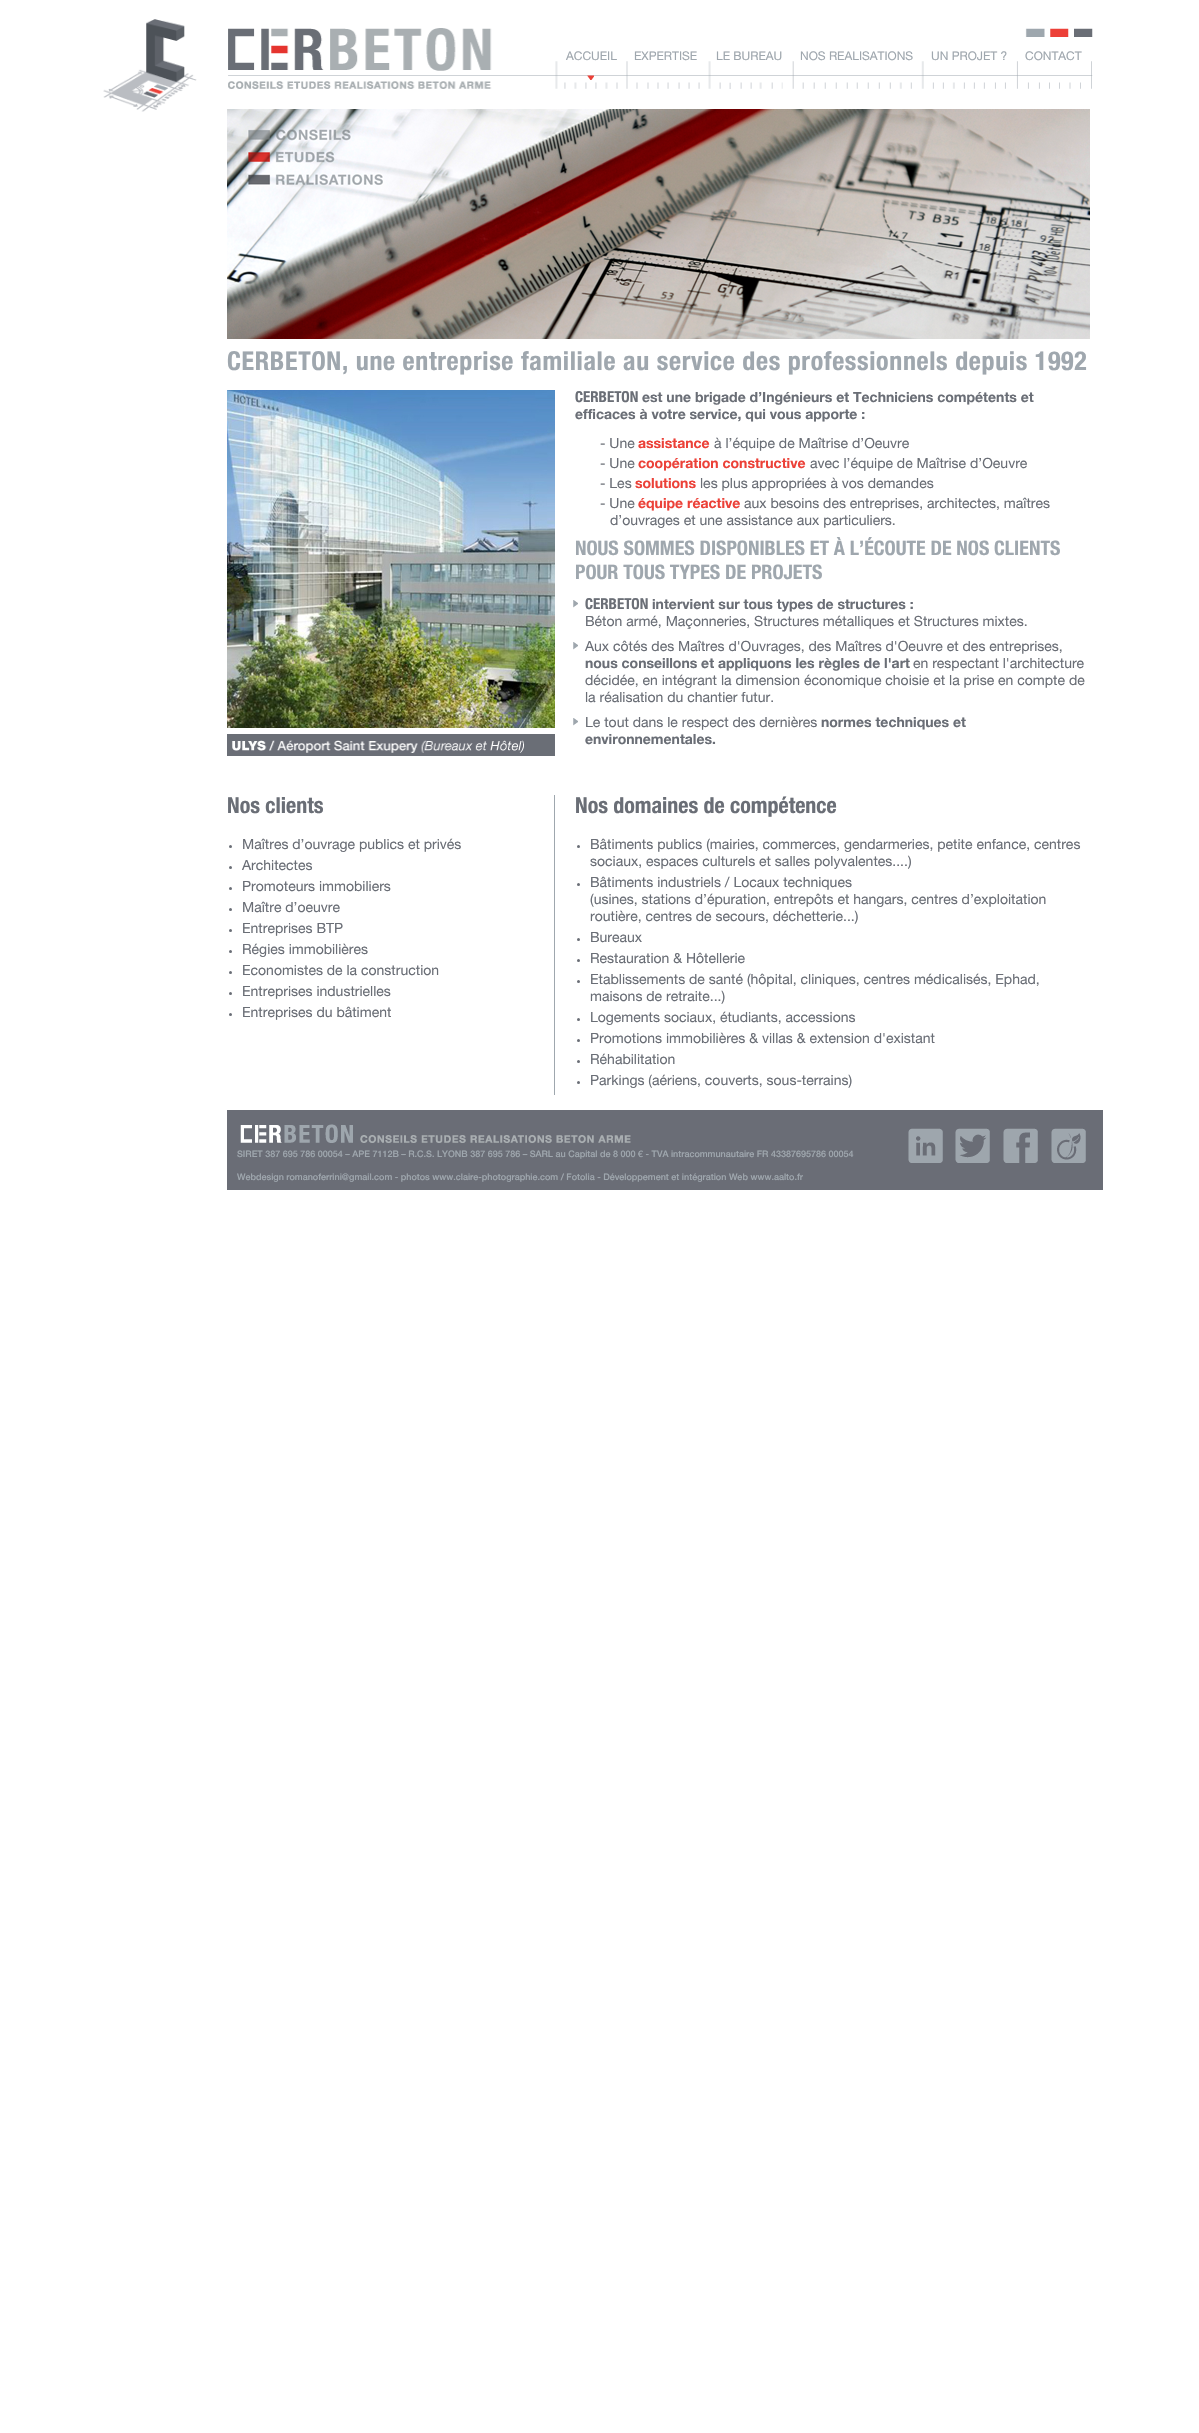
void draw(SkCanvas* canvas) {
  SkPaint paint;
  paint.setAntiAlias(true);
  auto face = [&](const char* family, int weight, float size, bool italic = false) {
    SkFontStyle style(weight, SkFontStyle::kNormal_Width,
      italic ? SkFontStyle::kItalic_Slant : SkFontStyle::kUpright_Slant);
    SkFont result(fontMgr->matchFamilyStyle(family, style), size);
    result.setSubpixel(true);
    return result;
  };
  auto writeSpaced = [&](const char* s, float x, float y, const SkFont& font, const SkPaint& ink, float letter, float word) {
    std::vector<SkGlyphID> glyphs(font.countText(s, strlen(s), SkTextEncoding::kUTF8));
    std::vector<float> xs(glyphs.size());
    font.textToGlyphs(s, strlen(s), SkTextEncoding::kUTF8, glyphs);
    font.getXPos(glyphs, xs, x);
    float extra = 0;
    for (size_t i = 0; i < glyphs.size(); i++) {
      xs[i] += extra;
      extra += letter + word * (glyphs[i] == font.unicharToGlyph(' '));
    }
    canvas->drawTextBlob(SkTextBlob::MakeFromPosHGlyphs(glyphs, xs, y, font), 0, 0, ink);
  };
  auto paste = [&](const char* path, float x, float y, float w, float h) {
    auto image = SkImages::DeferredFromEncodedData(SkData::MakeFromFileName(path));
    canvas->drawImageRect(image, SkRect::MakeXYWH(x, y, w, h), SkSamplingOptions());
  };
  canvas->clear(0xffffffff);
  paste("img/1.png", 103, 19, 94, 93);
  paste("img/2.png", 228, 28, 865, 61);
  paste("img/3.png", 587, 75, 7, 5);
  paste("img/4.png", 227, 109, 863, 230);
  paste("img/5.png", 227, 390, 328, 338);
  paint.setColor(0xff6a6e76);
  canvas->drawRect(SkRect::MakeXYWH(227, 734, 328, 22), paint);
  paste("img/6.png", 232, 740, 292, 13);
  paste("img/7.png", 573, 600, 5, 8);
  paste("img/7.png", 573, 642, 5, 8);
  paste("img/7.png", 573, 718, 5, 8);
  paint.setColor(0xff9fa7ae);
  canvas->drawRect(SkRect::MakeXYWH(554, 795, 1, 300), paint);
  paint.setColor(0xff6a6e76);
  canvas->drawCircle(230.5f, 846.5f, 1.5f, paint);
  canvas->drawCircle(230.5f, 867.5f, 1.5f, paint);
  canvas->drawCircle(230.5f, 888.5f, 1.5f, paint);
  canvas->drawCircle(230.5f, 909.5f, 1.5f, paint);
  canvas->drawCircle(230.5f, 930.5f, 1.5f, paint);
  canvas->drawCircle(230.5f, 951.5f, 1.5f, paint);
  canvas->drawCircle(230.5f, 972.5f, 1.5f, paint);
  canvas->drawCircle(230.5f, 993.5f, 1.5f, paint);
  canvas->drawCircle(230.5f, 1014.5f, 1.5f, paint);
  canvas->drawCircle(578.5f, 846.5f, 1.5f, paint);
  canvas->drawCircle(578.5f, 884.5f, 1.5f, paint);
  canvas->drawCircle(578.5f, 939.5f, 1.5f, paint);
  canvas->drawCircle(578.5f, 960.5f, 1.5f, paint);
  canvas->drawCircle(578.5f, 981.5f, 1.5f, paint);
  canvas->drawCircle(578.5f, 1019.5f, 1.5f, paint);
  canvas->drawCircle(578.5f, 1040.5f, 1.5f, paint);
  canvas->drawCircle(578.5f, 1061.5f, 1.5f, paint);
  canvas->drawCircle(578.5f, 1082.5f, 1.5f, paint);
  paint.setColor(0xff6a6d76);
  canvas->drawRect(SkRect::MakeXYWH(227, 1110, 876, 80), paint);
  paste("img/8.png", 240, 1124, 391, 19);
  paste("img/9.png", 908, 1128, 35, 35);
  paste("img/10.png", 955, 1128, 35, 35);
  paste("img/11.png", 1003, 1128, 35, 35);
  paste("img/12.png", 1051, 1128, 35, 35);
  auto f0 = face("Helvetica Neue", 400, 12);
  paint.setColor(0xff9fa7ae);
  {
    const struct { const char* s; float x, y; } items[] = {
      {"ACCUEIL", 566, 60},
      {"EXPERTISE", 634, 60},
      {"LE BUREAU", 716, 60},
      {"NOS REALISATIONS", 800, 60},
      {"UN PROJET ?", 931, 60},
      {"CONTACT", 1025, 60},
    };
    for (auto [s, x, y] : items) {
      canvas->drawString(s, x, y, f0, paint);
    }
  }
  auto f1 = face("Helvetica Neue", 700, 26);
  writeSpaced("CERBETON, une entreprise familiale au service des professionnels depuis 1992", 227, 370, f1, paint, 0.65f, 0);
  auto f2 = face("Helvetica Neue", 700, 15);
  paint.setColor(0xff6a6e76);
  canvas->drawString("CERBETON", 575, 402, f2, paint);
  auto f3 = face("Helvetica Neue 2", 700, 14);
  canvas->drawString("est une brigade d’Ingénieurs et Techniciens compétents et", 642, 402, f3, paint);
  canvas->drawString("efficaces à votre service, qui vous apporte :", 575, 419, f3, paint);
  auto f4 = face("Helvetica Neue", 400, 14);
  canvas->drawString("- Une", 600, 448, f4, paint);
  paint.setColor(0xffec4138);
  canvas->drawString("assistance", 638, 448, f3, paint);
  paint.setColor(0xff6a6e76);
  canvas->drawString("à l’équipe de Maîtrise d’Oeuvre", 714, 448, f4, paint);
  canvas->drawString("- Une", 600, 468, f4, paint);
  paint.setColor(0xffec4138);
  canvas->drawString("coopération constructive", 638, 468, f3, paint);
  paint.setColor(0xff6a6e76);
  canvas->drawString("avec l’équipe de Maîtrise d’Oeuvre", 810, 468, f4, paint);
  canvas->drawString("- Les", 600, 488, f4, paint);
  paint.setColor(0xffec4138);
  canvas->drawString("solutions", 635, 488, f3, paint);
  paint.setColor(0xff6a6e76);
  canvas->drawString("les plus appropriées à vos demandes", 700, 488, f4, paint);
  canvas->drawString("- Une", 600, 508, f4, paint);
  paint.setColor(0xffec4138);
  canvas->drawString("équipe réactive", 638, 508, f3, paint);
  paint.setColor(0xff6a6e76);
  canvas->drawString("aux besoins des entreprises, architectes, maîtres", 744, 508, f4, paint);
  canvas->drawString("d’ouvrages et une assistance aux particuliers.", 610, 525, f4, paint);
  auto f5 = face("Helvetica Neue", 700, 20);
  paint.setColor(0xff9fa7ae);
  canvas->drawString("NOUS SOMMES DISPONIBLES ET À L’ÉCOUTE DE NOS CLIENTS", 575, 555, f5, paint);
  canvas->drawString("POUR TOUS TYPES DE PROJETS", 575, 579, f5, paint);
  paint.setColor(0xff6a6e76);
  canvas->drawString("CERBETON", 585, 609, f2, paint);
  canvas->drawString("intervient sur tous types de structures :", 652, 609, f3, paint);
  canvas->drawString("Béton armé, Maçonneries, Structures métalliques et Structures mixtes.", 585, 626, f4, paint);
  canvas->drawString("Aux côtés des Maîtres d'Ouvrages, des Maîtres d'Oeuvre et des entreprises,", 585, 651, f4, paint);
  canvas->drawString("nous conseillons et appliquons les règles de l'art", 585, 668, f3, paint);
  {
    const struct { const char* s; float x, y; } items[] = {
      {"en respectant l'architecture", 913, 668},
      {"décidée, en intégrant la dimension économique choisie et la prise en compte de", 585, 685},
      {"la réalisation du chantier futur.", 585, 702},
      {"Le tout dans le respect des dernières", 585, 727},
    };
    for (auto [s, x, y] : items) {
      canvas->drawString(s, x, y, f4, paint);
    }
  }
  canvas->drawString("normes techniques et", 821, 727, f3, paint);
  canvas->drawString("environnementales.", 585, 744, f3, paint);
  auto f6 = face("Helvetica Neue", 700, 22);
  canvas->drawString("Nos clients", 227, 813, f6, paint);
  {
    const struct { const char* s; float x, y; } items[] = {
      {"Maîtres d’ouvrage publics et privés", 242, 849},
      {"Architectes", 242, 870},
      {"Promoteurs immobiliers", 242, 891},
      {"Maître d’oeuvre", 242, 912},
      {"Entreprises BTP", 242, 933},
      {"Régies immobilières", 242, 954},
      {"Economistes de la construction", 242, 975},
      {"Entreprises industrielles", 242, 996},
      {"Entreprises du bâtiment", 242, 1017},
    };
    for (auto [s, x, y] : items) {
      canvas->drawString(s, x, y, f4, paint);
    }
  }
  canvas->drawString("Nos domaines de compétence", 575, 813, f6, paint);
  {
    const struct { const char* s; float x, y; } items[] = {
      {"Bâtiments publics (mairies, commerces, gendarmeries, petite enfance, centres", 590, 849},
      {"sociaux, espaces culturels et salles polyvalentes....)", 590, 866},
      {"Bâtiments industriels / Locaux techniques", 590, 887},
      {"(usines, stations d’épuration, entrepôts et hangars, centres d’exploitation", 590, 904},
      {"routière, centres de secours, déchetterie...)", 590, 921},
      {"Bureaux", 590, 942},
      {"Restauration & Hôtellerie", 590, 963},
      {"Etablissements de santé (hôpital, cliniques, centres médicalisés, Ephad,", 590, 984},
      {"maisons de retraite...)", 590, 1001},
      {"Logements sociaux, étudiants, accessions", 590, 1022},
      {"Promotions immobilières & villas & extension d'existant", 590, 1043},
      {"Réhabilitation", 590, 1064},
      {"Parkings (aériens, couverts, sous-terrains)", 590, 1085},
    };
    for (auto [s, x, y] : items) {
      canvas->drawString(s, x, y, f4, paint);
    }
  }
  auto f7 = face("Helvetica Neue", 500, 9);
  paint.setColor(0xff9fa7ae);
  canvas->drawString("SIRET 387 695 786 00054 – APE 7112B – R.C.S. LYONB 387 695 786 – SARL au Capital de 8 000 € - TVA intracommunautaire FR 43387695786 00054", 237, 1157, f7, paint);
  canvas->drawString("Webdesign romanoferrini@gmail.com - photos www.claire-photographie.com / Fotolia - Développement et intégration Web www.aalto.fr", 237, 1180, f7, paint);
}
